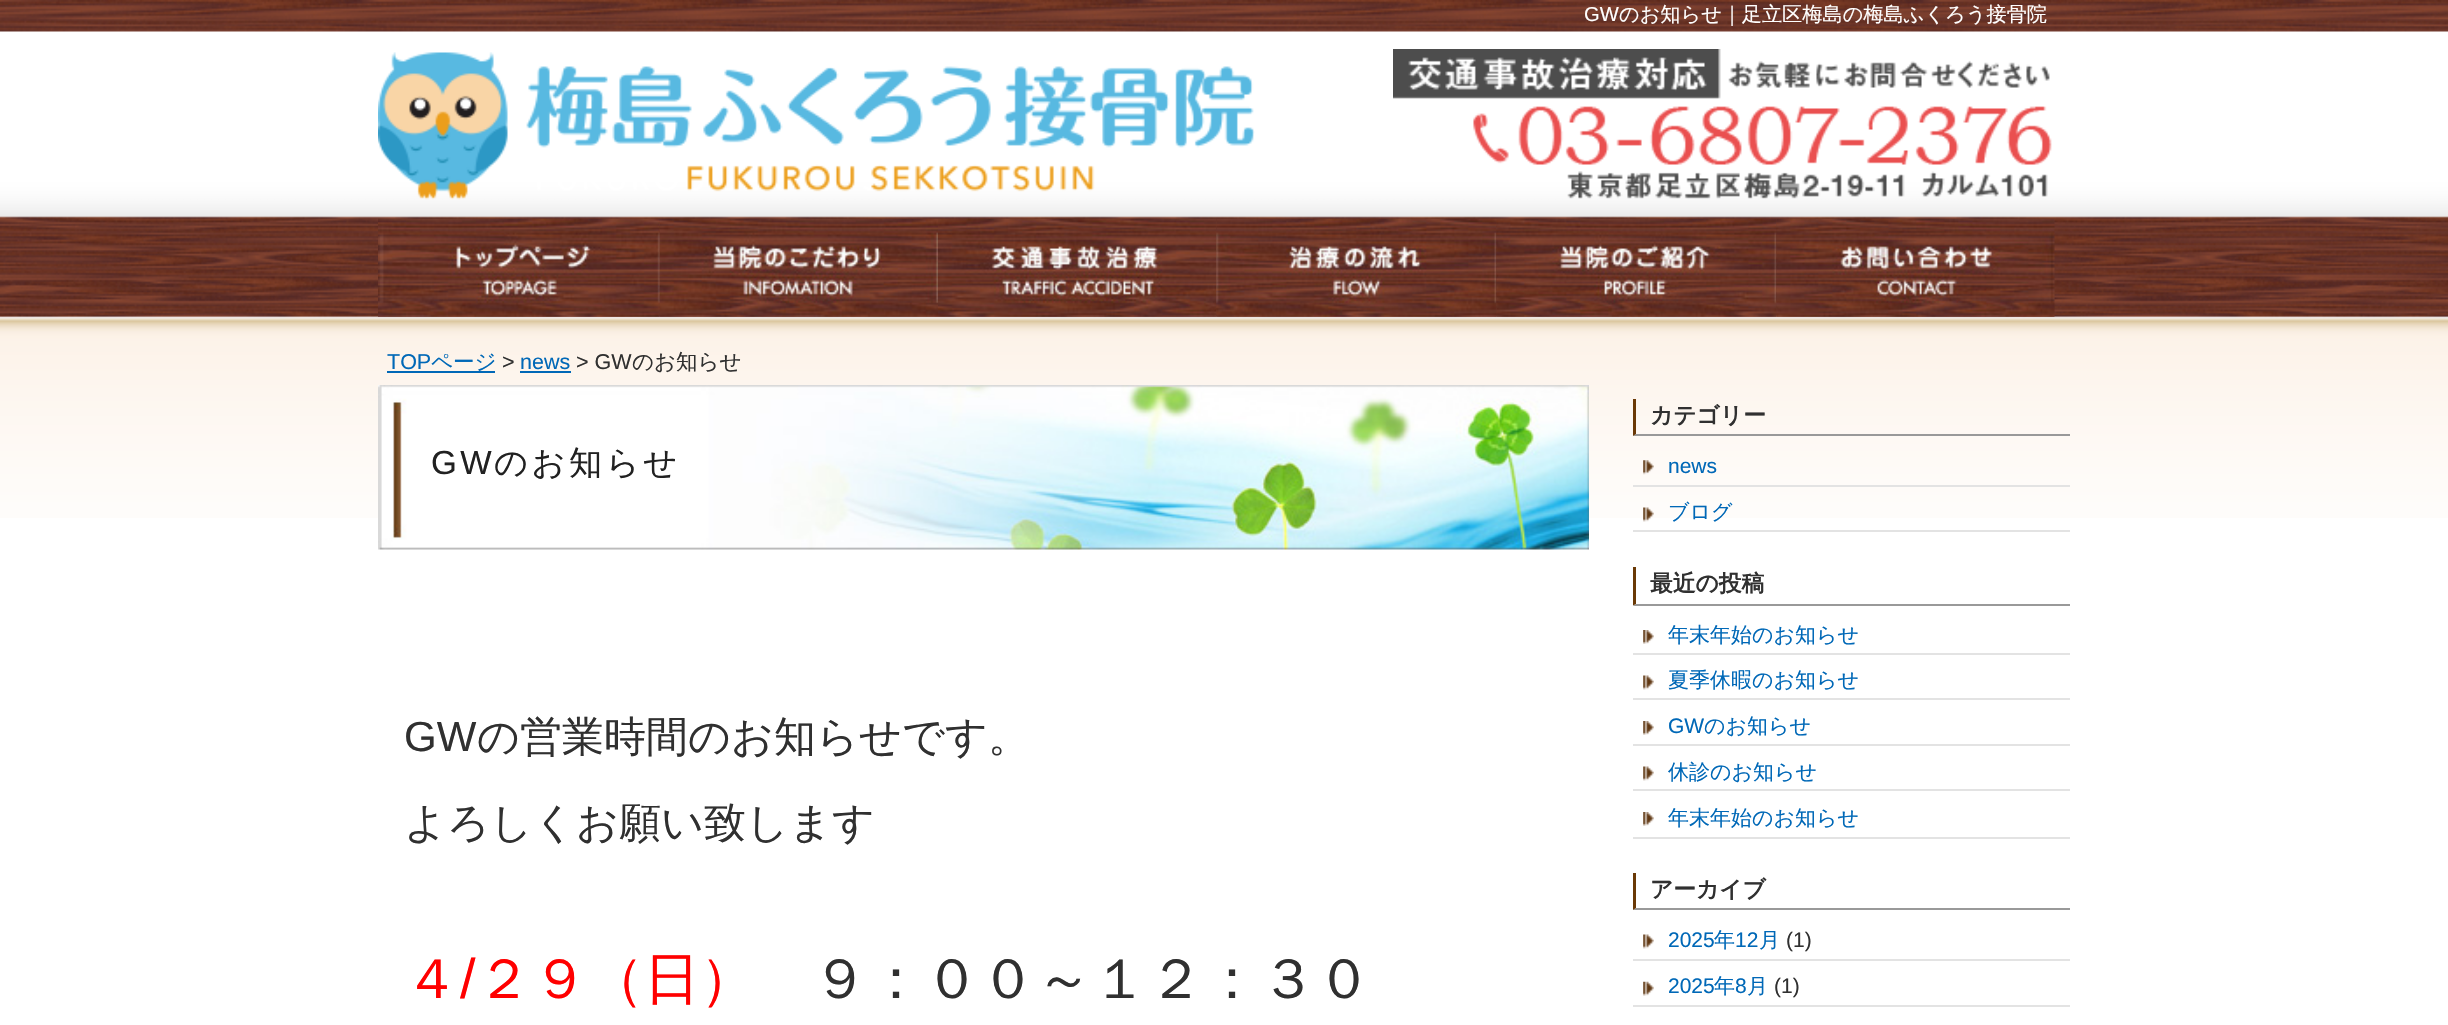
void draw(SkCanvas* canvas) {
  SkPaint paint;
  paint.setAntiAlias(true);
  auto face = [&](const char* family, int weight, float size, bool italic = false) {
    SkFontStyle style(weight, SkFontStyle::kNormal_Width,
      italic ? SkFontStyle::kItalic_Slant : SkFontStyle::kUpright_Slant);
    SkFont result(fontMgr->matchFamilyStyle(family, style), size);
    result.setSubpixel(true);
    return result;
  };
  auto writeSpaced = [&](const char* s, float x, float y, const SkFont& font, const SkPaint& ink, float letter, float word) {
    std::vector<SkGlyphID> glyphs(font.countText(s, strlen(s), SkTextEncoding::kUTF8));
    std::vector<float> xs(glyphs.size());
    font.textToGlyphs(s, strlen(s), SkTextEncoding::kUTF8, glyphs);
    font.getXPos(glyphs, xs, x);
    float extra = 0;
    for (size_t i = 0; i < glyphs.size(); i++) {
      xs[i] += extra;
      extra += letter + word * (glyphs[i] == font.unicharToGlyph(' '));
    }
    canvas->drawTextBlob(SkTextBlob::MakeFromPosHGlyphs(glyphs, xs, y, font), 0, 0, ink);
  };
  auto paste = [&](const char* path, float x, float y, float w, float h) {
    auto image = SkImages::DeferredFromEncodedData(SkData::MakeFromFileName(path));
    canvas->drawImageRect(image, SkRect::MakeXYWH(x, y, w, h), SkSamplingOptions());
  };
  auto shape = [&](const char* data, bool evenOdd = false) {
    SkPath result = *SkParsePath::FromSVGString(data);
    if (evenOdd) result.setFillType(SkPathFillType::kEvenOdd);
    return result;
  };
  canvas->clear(0xffffffff);
  paste("img/1.png", 0, 0, 2448, 518);
  paste("img/2.png", 378, 52, 877, 148);
  paste("img/3.png", 1393, 49, 659, 150);
  paste("img/4.png", 378, 218, 282, 99);
  paste("img/5.png", 659, 218, 279, 99);
  paste("img/6.png", 938, 218, 279, 99);
  paste("img/7.png", 1216, 218, 281, 99);
  paste("img/8.png", 1496, 218, 281, 99);
  paste("img/9.png", 1776, 218, 279, 99);
  paint.setColor(0xff0068b7);
  canvas->drawRect(SkRect::MakeXYWH(387, 371, 108, 2), paint);
  canvas->drawRect(SkRect::MakeXYWH(520, 371, 51, 2), paint);
  paste("img/10.png", 378, 385, 1211, 165);
  paint.setColor(0xff999999);
  canvas->drawPath(shape("M2070 436H1633L1636 434H2070Z"), paint);
  paint.setColor(0xff6a3906);
  canvas->drawPath(shape("M1633 436V399H1636V434Z"), paint);
  paste("img/11.png", 1643, 460, 11, 15);
  paint.setColor(0xffe3e3e3);
  canvas->drawRect(SkRect::MakeXYWH(1633, 485, 437, 2), paint);
  paste("img/12.png", 1643, 507, 11, 15);
  canvas->drawRect(SkRect::MakeXYWH(1633, 530, 437, 2), paint);
  paint.setColor(0xff999999);
  canvas->drawPath(shape("M2070 606H1633L1636 604H2070Z"), paint);
  paint.setColor(0xff6a3906);
  canvas->drawPath(shape("M1633 605.5V567H1636V604Z"), paint);
  paste("img/13.png", 1643, 630, 11, 14);
  paint.setColor(0xffe3e3e3);
  canvas->drawRect(SkRect::MakeXYWH(1633, 653, 437, 2), paint);
  paste("img/14.png", 1643, 675, 11, 15);
  canvas->drawRect(SkRect::MakeXYWH(1633, 698, 437, 2), paint);
  paste("img/13.png", 1643, 721, 11, 14);
  canvas->drawRect(SkRect::MakeXYWH(1633, 744, 437, 2), paint);
  paste("img/14.png", 1643, 766, 11, 15);
  canvas->drawRect(SkRect::MakeXYWH(1633, 789, 437, 2), paint);
  paste("img/13.png", 1643, 812, 11, 14);
  canvas->drawRect(SkRect::MakeXYWH(1633, 837, 437, 2), paint);
  paint.setColor(0xff999999);
  canvas->drawPath(shape("M2070 910H1633L1636 908H2070Z"), paint);
  paint.setColor(0xff6a3906);
  canvas->drawPath(shape("M1633 910V873H1636V908Z"), paint);
  paste("img/14.png", 1643, 934, 11, 15);
  paint.setColor(0xffe3e3e3);
  canvas->drawRect(SkRect::MakeXYWH(1633, 959, 437, 2), paint);
  paste("img/15.png", 1643, 981, 11, 15);
  canvas->drawRect(SkRect::MakeXYWH(1633, 1005, 437, 2), paint);
  auto f0 = face("Liberation Sans", 400, 20.2f);
  paint.setColor(0xffffffff);
  canvas->drawString("GW", 1584, 21, f0, paint);
  auto f1 = face("WenQuanYi Zen Hei", 500, 20.2f);
  canvas->drawString("のお知らせ｜足立区梅島の梅島ふくろう接骨院", 1619, 21, f1, paint);
  auto f2 = face("Liberation Sans", 400, 21.5f);
  paint.setColor(0xff0068b7);
  canvas->drawString("TOP", 387, 369, f2, paint);
  auto f3 = face("WenQuanYi Zen Hei", 500, 21.5f);
  canvas->drawString("ページ", 431, 369, f3, paint);
  paint.setColor(0xff303030);
  canvas->drawString(">", 502, 369, f2, paint);
  paint.setColor(0xff0068b7);
  canvas->drawString("news", 520, 369, f2, paint);
  paint.setColor(0xff303030);
  canvas->drawString("> GW", 576, 369, f2, paint);
  canvas->drawString("のお知らせ", 632, 369, f3, paint);
  auto f4 = face("Liberation Sans", 400, 33.25f);
  paint.setColor(0xff212121);
  writeSpaced("GW", 431, 474, f4, paint, 3.5f, 0);
  auto f5 = face("WenQuanYi Zen Hei", 500, 33.25f);
  writeSpaced("のお知らせ", 494, 474, f5, paint, 3.5f, 0);
  auto f6 = face("Liberation Sans", 400, 42);
  paint.setColor(0xff303030);
  canvas->drawString("GW", 404, 751, f6, paint);
  auto f7 = face("WenQuanYi Zen Hei", 500, 42);
  canvas->drawString("の営業時間のお知らせです。", 477, 751, f7, paint);
  canvas->drawString("よろしくお願い致します", 404, 837, f7, paint);
  auto f8 = face("WenQuanYi Zen Hei", 500, 56);
  paint.setColor(0xffff0000);
  canvas->drawString("４", 404, 998, f8, paint);
  auto f9 = face("Liberation Sans", 400, 56);
  canvas->drawString("/", 460, 998, f9, paint);
  canvas->drawString("２９（日）", 476, 998, f8, paint);
  paint.setColor(0xff303030);
  canvas->drawString("９：００～１２：３０", 812, 998, f8, paint);
  auto f10 = face("WenQuanYi Zen Hei", 700, 22.75f);
  canvas->drawString("カテゴリー", 1650, 423, f10, paint);
  auto f11 = face("Liberation Sans", 400, 21);
  paint.setColor(0xff0068b7);
  canvas->drawString("news", 1668, 473, f11, paint);
  auto f12 = face("WenQuanYi Zen Hei", 500, 21);
  canvas->drawString("ブログ", 1668, 519, f12, paint);
  paint.setColor(0xff303030);
  canvas->drawString("最近の投稿", 1650, 591, f10, paint);
  paint.setColor(0xff0068b7);
  canvas->drawString("年末年始のお知らせ", 1668, 642, f12, paint);
  canvas->drawString("夏季休暇のお知らせ", 1668, 687, f12, paint);
  canvas->drawString("GW", 1668, 733, f11, paint);
  {
    const struct { const char* s; float x, y; } items[] = {
      {"のお知らせ", 1704, 733},
      {"休診のお知らせ", 1668, 779},
      {"年末年始のお知らせ", 1668, 825},
    };
    for (auto [s, x, y] : items) {
      canvas->drawString(s, x, y, f12, paint);
    }
  }
  paint.setColor(0xff303030);
  canvas->drawString("アーカイブ", 1650, 897, f10, paint);
  paint.setColor(0xff0068b7);
  canvas->drawString("2025", 1668, 947, f11, paint);
  canvas->drawString("年", 1714, 947, f12, paint);
  canvas->drawString("12", 1735, 947, f11, paint);
  canvas->drawString("月", 1759, 947, f12, paint);
  paint.setColor(0xff303030);
  canvas->drawString("(1)", 1786, 947, f11, paint);
  paint.setColor(0xff0068b7);
  canvas->drawString("2025", 1668, 993, f11, paint);
  canvas->drawString("年", 1714, 993, f12, paint);
  canvas->drawString("8", 1735, 993, f11, paint);
  canvas->drawString("月", 1747, 993, f12, paint);
  paint.setColor(0xff303030);
  canvas->drawString("(1)", 1774, 993, f11, paint);
}
